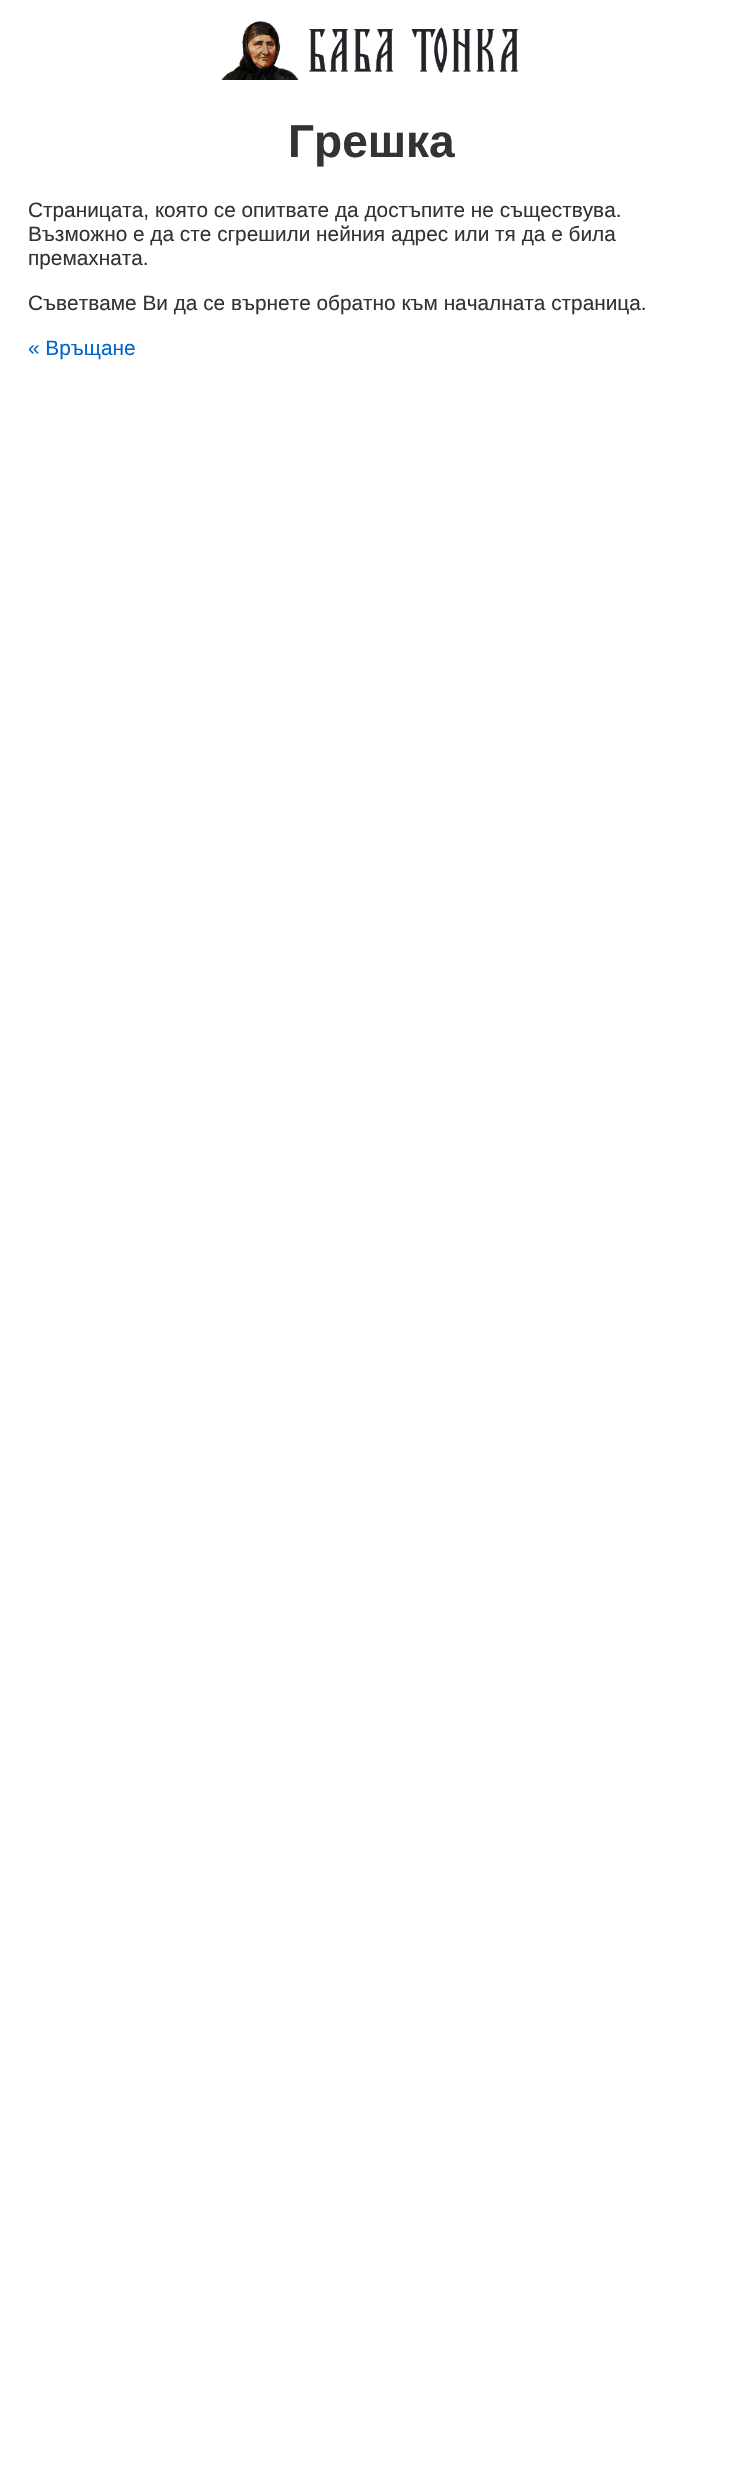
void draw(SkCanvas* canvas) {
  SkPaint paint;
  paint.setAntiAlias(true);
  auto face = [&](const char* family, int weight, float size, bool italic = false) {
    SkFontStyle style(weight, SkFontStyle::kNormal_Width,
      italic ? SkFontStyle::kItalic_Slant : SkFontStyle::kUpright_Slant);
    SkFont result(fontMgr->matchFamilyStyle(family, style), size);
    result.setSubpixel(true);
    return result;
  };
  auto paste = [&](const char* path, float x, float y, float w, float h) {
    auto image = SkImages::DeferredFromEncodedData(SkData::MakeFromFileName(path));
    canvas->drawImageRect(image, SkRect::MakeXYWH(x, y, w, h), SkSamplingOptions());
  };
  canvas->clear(0xffffffff);
  paste("img/1.png", 221, 21, 297, 59);
  auto f0 = face("Liberation Sans", 700, 46);
  paint.setColor(0xff333333);
  canvas->drawString("Грешка", 288, 157, f0, paint);
  auto f1 = face("Liberation Sans", 400, 20.8f);
  {
    const struct { const char* s; float x, y; } items[] = {
      {"Страницата, която се опитвате да достъпите не съществува.", 28, 217},
      {"Възможно е да сте сгрешили нейния адрес или тя да е била", 28, 241},
      {"премахната.", 28, 265},
      {"Съветваме Ви да се върнете обратно към началната страница.", 28, 310},
    };
    for (auto [s, x, y] : items) {
      canvas->drawString(s, x, y, f1, paint);
    }
  }
  paint.setColor(0xff0266c8);
  canvas->drawString("« Връщане", 28, 355, f1, paint);
}
